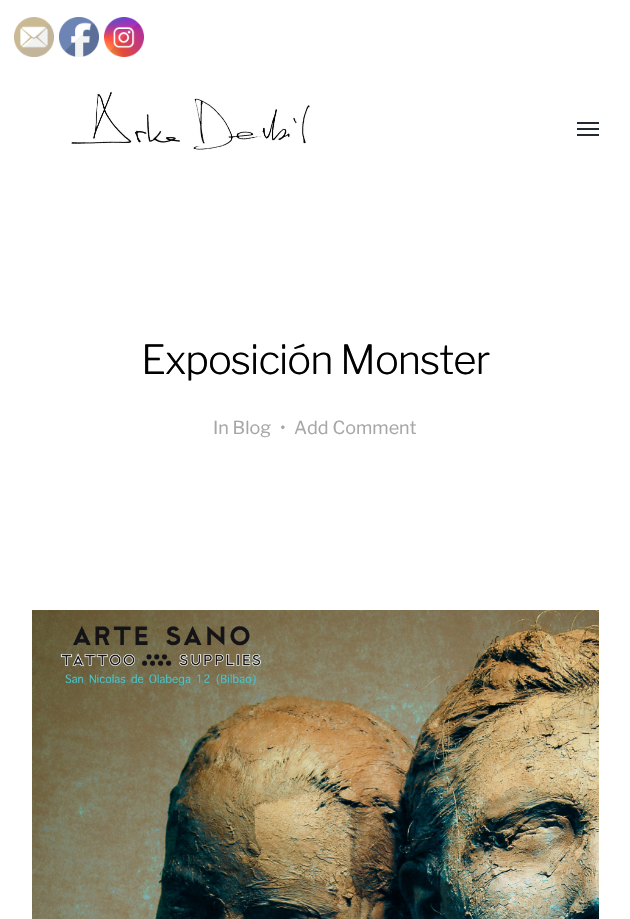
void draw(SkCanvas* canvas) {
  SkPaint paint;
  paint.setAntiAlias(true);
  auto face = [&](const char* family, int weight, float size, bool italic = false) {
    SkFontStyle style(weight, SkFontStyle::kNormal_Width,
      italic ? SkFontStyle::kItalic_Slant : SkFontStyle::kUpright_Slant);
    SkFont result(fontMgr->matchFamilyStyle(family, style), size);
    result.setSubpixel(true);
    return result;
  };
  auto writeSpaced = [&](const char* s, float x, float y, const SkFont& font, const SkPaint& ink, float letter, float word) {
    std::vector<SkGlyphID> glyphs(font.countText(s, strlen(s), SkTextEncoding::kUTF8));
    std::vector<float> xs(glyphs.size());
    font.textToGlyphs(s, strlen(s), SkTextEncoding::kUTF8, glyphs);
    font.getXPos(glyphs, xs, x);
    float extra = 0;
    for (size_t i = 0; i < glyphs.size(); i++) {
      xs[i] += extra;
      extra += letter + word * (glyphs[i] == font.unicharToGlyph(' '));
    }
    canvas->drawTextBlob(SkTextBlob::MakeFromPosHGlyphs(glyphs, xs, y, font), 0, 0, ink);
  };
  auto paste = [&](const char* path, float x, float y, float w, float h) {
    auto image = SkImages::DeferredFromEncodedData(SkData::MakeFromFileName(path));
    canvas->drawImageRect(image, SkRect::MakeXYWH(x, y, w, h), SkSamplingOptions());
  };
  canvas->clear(0xffffffff);
  paste("img/1.png", 14, 17, 40, 40);
  paste("img/2.png", 59, 17, 40, 40);
  paste("img/3.png", 104, 17, 40, 40);
  paste("img/4.png", 71, 92, 239, 58);
  {
    const struct { float x, y, w, h; SkColor color; } items[] = {
      {577, 122, 22, 2, 0xff212a34},
      {577, 128, 22, 2, 0xff212a34},
      {577, 134, 22, 2, 0xff212a34},
    };
    for (auto [x, y, w, h, color] : items) {
      paint.setColor(color);
      canvas->drawRect(SkRect::MakeXYWH(x, y, w, h), paint);
    }
  }
  paste("img/5.png", 32, 610, 567, 309);
  auto f0 = face("Libre Franklin", 300, 40);
  paint.setColor(0xff000000);
  writeSpaced("Exposición Monster", 141, 374, f0, paint, -1, 0);
  auto f1 = face("Libre Franklin", 400, 18);
  paint.setColor(0xffa6a6a6);
  {
    const struct { const char* s; float x, y; } items[] = {
      {"In Blog", 213, 434},
      {"•", 280, 434},
      {"Add Comment", 294, 434},
    };
    for (auto [s, x, y] : items) {
      canvas->drawString(s, x, y, f1, paint);
    }
  }
}
